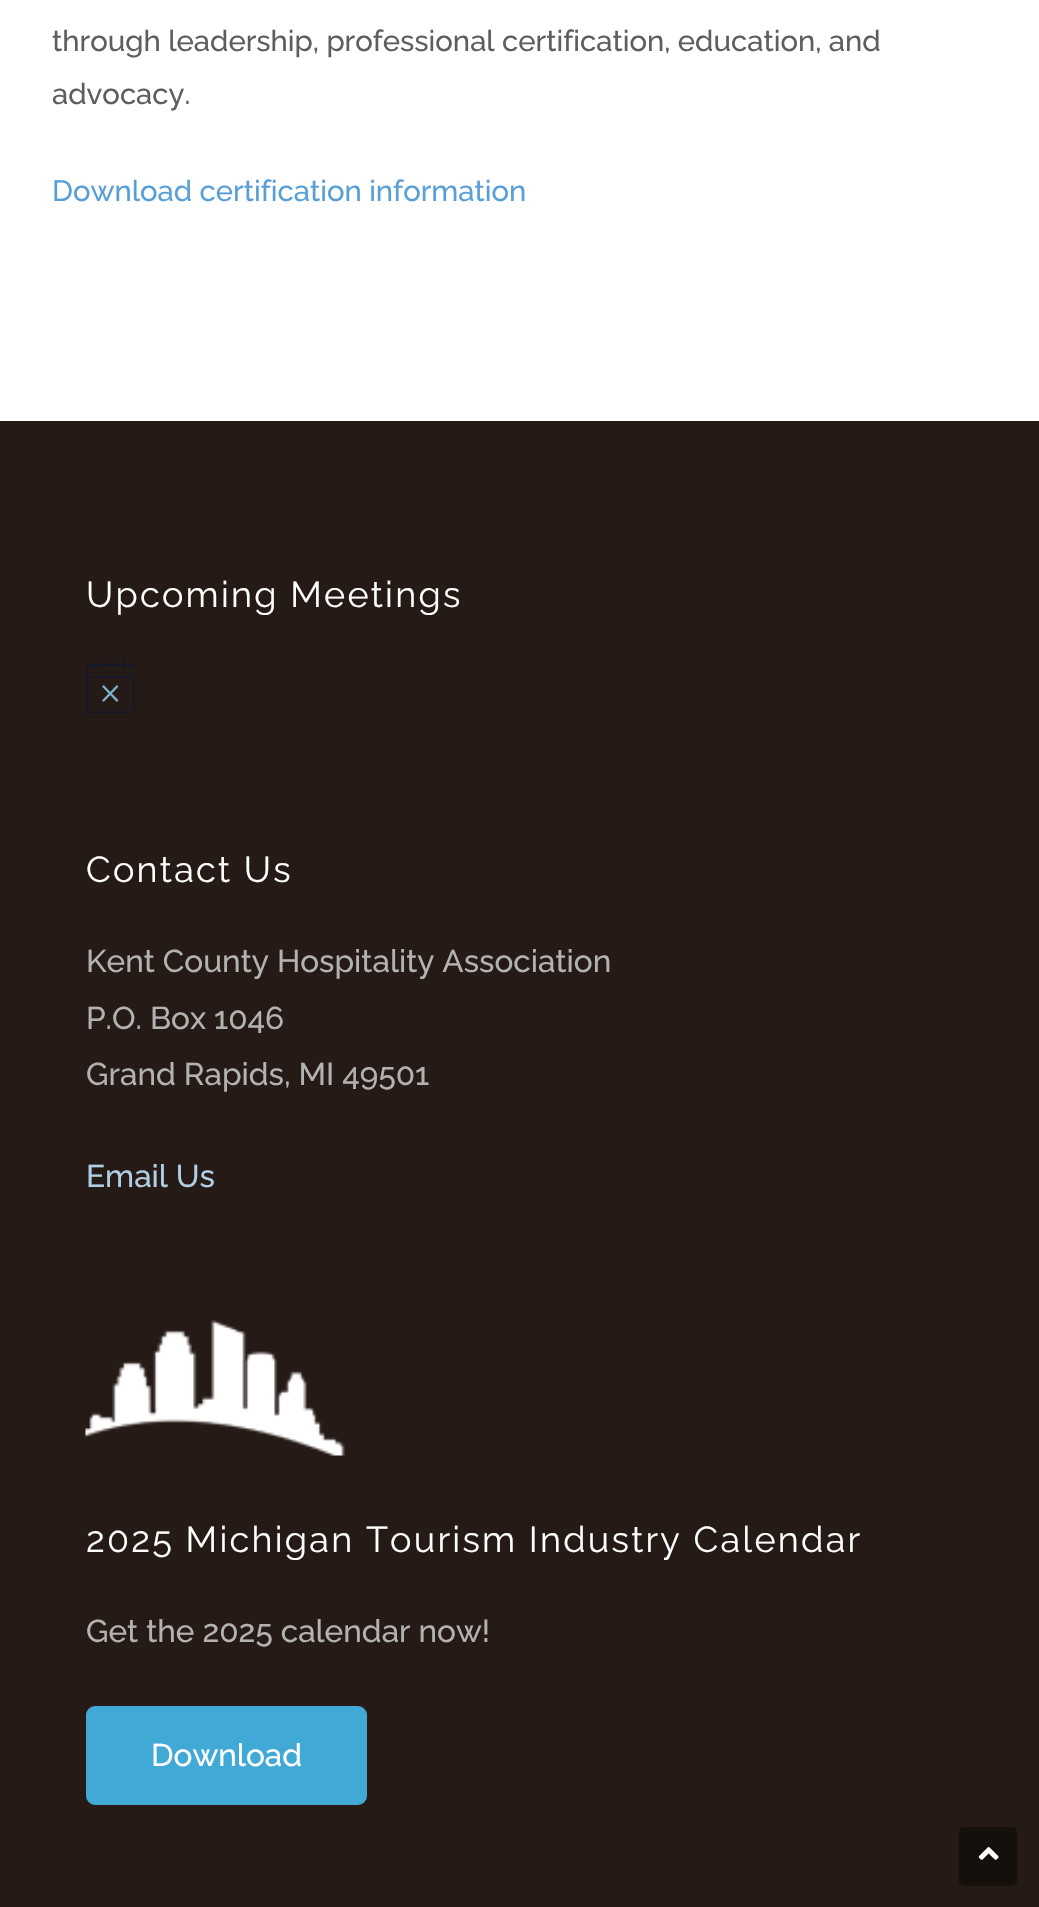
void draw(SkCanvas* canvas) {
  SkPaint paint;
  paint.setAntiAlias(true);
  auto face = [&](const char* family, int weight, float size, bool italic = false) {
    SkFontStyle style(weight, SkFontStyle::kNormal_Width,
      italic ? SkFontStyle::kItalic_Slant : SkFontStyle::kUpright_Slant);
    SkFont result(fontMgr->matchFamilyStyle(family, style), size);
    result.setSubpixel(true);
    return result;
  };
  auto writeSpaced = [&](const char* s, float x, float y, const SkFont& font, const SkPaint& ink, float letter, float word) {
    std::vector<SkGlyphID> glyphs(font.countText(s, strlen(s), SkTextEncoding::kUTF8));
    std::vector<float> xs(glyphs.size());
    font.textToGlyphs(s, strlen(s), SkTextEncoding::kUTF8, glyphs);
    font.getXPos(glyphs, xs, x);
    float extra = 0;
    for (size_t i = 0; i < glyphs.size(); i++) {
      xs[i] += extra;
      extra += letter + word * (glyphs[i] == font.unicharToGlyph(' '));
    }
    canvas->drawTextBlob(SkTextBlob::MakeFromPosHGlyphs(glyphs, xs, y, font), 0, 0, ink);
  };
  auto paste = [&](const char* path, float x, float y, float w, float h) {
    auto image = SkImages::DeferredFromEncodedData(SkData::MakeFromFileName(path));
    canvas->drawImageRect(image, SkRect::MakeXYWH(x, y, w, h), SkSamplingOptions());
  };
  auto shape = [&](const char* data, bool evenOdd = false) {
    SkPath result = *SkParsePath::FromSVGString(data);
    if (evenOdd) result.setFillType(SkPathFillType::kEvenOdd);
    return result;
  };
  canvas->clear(0xffffffff);
  paint.setColor(0xff251a16);
  canvas->drawRect(SkRect::MakeXYWH(0, 421, 1039, 1486), paint);
  canvas->save();
  canvas->clipRect(SkRect::MakeXYWH(86, 659, 49, 54));
  paint.setStroke(true);
  paint.setStrokeWidth(2.4f);
  paint.setColor(0xff141827);
  canvas->drawPath(shape("M86.5 665H134V712.5H86.5Z"), paint);
  canvas->restore();
  paint.setStrokeCap(SkPaint::kRound_Cap);
  paint.setColor(0xff78b6c9);
  canvas->drawPath(shape("M103.5 686.5L117 700.5M117 686.5L103.5 700.5"), paint);
  paint.setColor(0xff141827);
  canvas->drawPath(shape("M96 660.5V670M124.5 660.5V670"), paint);
  paint.setStroke(false);
  canvas->drawRect(SkRect::MakeXYWH(86, 676, 49, 2), paint);
  paste("img/1.png", 85, 1320, 260, 136);
  paint.setColor(0xff41a9d5);
  canvas->drawRoundRect(SkRect::MakeXYWH(87, 1707, 279, 97), 8, 8, paint);
  paint.setStroke(true);
  paint.setStrokeWidth(2);
  paint.setStrokeCap(SkPaint::kButt_Cap);
  canvas->drawRoundRect(SkRect::MakeXYWH(87, 1707, 279, 97), 8, 8, paint);
  paint.setStroke(false);
  paint.setColor(0xff16100d);
  canvas->drawRoundRect(SkRect::MakeXYWH(959, 1827, 58, 59), 5, 5, paint);
  paste("img/2.png", 978, 1847, 21, 13);
  auto f0 = face("Raleway", 100, 29.25f);
  paint.setColor(0xff5e5e5e);
  canvas->drawString("through leadership, professional certification, education, and", 52, 51, f0, paint);
  canvas->drawString("advocacy.", 52, 104, f0, paint);
  paint.setColor(0xff589fd8);
  canvas->drawString("Download certification information", 52, 201, f0, paint);
  auto f1 = face("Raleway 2", 100, 36);
  paint.setColor(0xffffffff);
  writeSpaced("Upcoming Meetings", 86, 607, f1, paint, 2.25f, 0);
  writeSpaced("Contact Us", 86, 882, f1, paint, 2.25f, 0);
  auto f2 = face("Raleway", 100, 31.5f);
  paint.setColor(0xffb2b2b2);
  {
    const struct { const char* s; float x, y; } items[] = {
      {"Kent County Hospitality Association", 86, 972},
      {"P.O. Box 1046", 86, 1029},
      {"Grand Rapids, MI 49501", 86, 1085},
    };
    for (auto [s, x, y] : items) {
      canvas->drawString(s, x, y, f2, paint);
    }
  }
  paint.setColor(0xffb0cfe5);
  canvas->drawString("Email Us", 86, 1187, f2, paint);
  paint.setColor(0xffffffff);
  writeSpaced("2025 Michigan Tourism Industry Calendar", 86, 1552, f1, paint, 2.25f, 0);
  paint.setColor(0xffb2b2b2);
  canvas->drawString("Get the 2025 calendar now!", 86, 1642, f2, paint);
  paint.setColor(0xffffffff);
  canvas->drawString("Download", 151, 1766, f2, paint);
}
